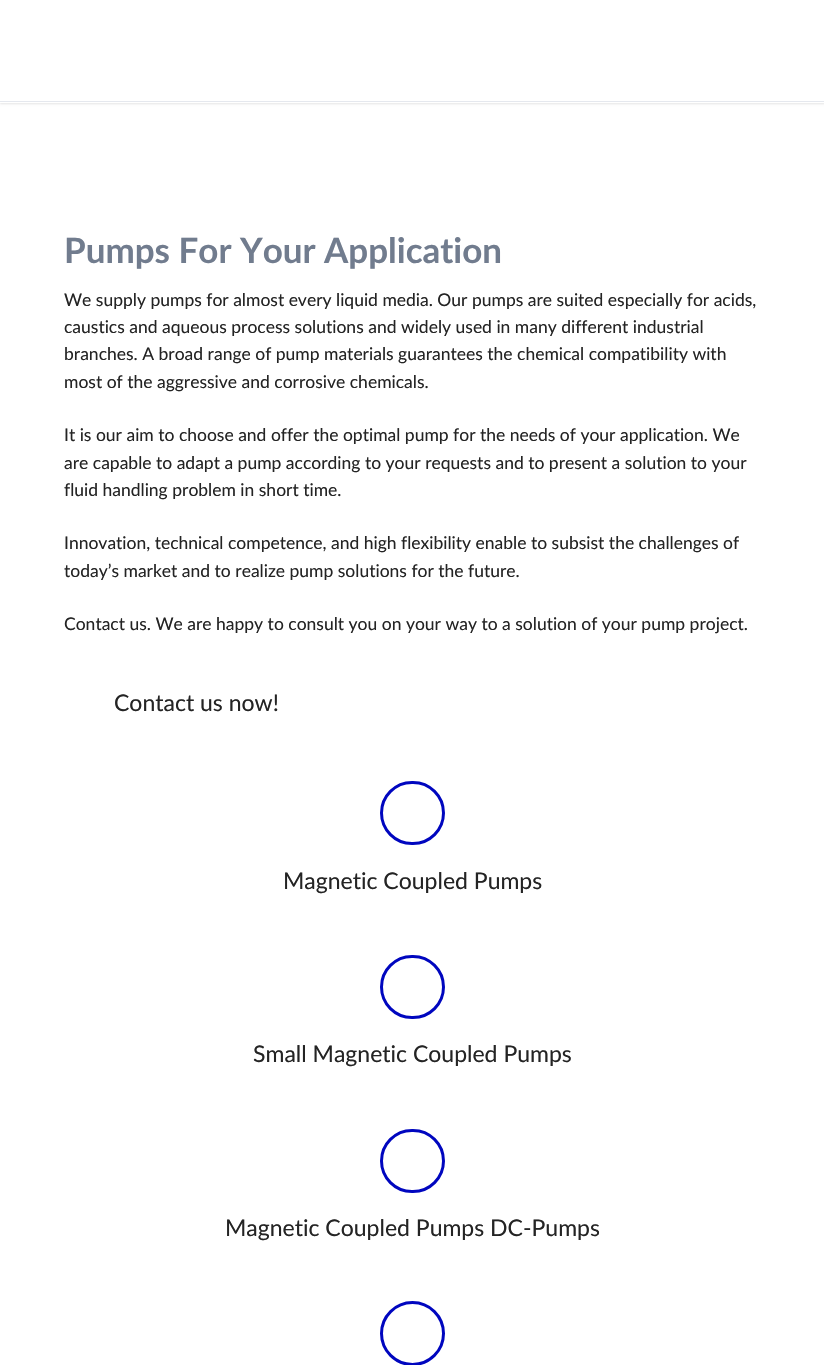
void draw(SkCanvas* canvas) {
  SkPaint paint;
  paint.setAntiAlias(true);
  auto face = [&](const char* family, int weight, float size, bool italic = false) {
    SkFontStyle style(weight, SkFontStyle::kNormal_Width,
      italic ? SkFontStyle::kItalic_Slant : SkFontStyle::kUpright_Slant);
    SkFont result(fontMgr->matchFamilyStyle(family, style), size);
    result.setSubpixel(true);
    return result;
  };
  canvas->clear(0xffffffff);
  paint.setColor(0x1a000000);
  paint.setMaskFilter(SkMaskFilter::MakeBlur(kNormal_SkBlurStyle, 1));
  canvas->drawRect(SkRect::MakeXYWH(0, 1, 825, 103), paint);
  paint.setMaskFilter(nullptr);
  paint.setColor(0xffffffff);
  canvas->drawRect(SkRect::MakeXYWH(0, 0, 824, 103), paint);
  paint.setColor(0xffe5e8ee);
  canvas->drawRect(SkRect::MakeXYWH(0, 101, 824, 1), paint);
  paint.setStroke(true);
  paint.setStrokeWidth(3);
  paint.setColor(0xff0006bf);
  canvas->drawRoundRect(SkRect::MakeXYWH(381.5f, 782.5f, 62, 61), 30.5f, 30.5f, paint);
  canvas->drawRoundRect(SkRect::MakeXYWH(381.5f, 956.5f, 62, 61), 30.5f, 30.5f, paint);
  canvas->drawRoundRect(SkRect::MakeXYWH(381.5f, 1130.5f, 62, 61), 30.5f, 30.5f, paint);
  canvas->drawCircle(412.5f, 1333.5f, 31, paint);
  auto f0 = face("Lato", 700, 35);
  paint.setStroke(false);
  paint.setColor(0xff717c8e);
  canvas->drawString("Pumps For Your Application", 64, 263, f0, paint);
  auto f1 = face("Lato", 400, 17.5f);
  paint.setColor(0xff242424);
  {
    const struct { const char* s; float x, y; } items[] = {
      {"We supply pumps for almost every liquid media. Our pumps are suited especially for acids,", 64, 306},
      {"caustics and aqueous process solutions and widely used in many different industrial", 64, 333},
      {"branches. A broad range of pump materials guarantees the chemical compatibility with", 64, 360},
      {"most of the aggressive and corrosive chemicals.", 64, 388},
      {"It is our aim to choose and offer the optimal pump for the needs of your application. We", 64, 441},
      {"are capable to adapt a pump according to your requests and to present a solution to your", 64, 469},
      {"fluid handling problem in short time.", 64, 496},
      {"Innovation, technical competence, and high flexibility enable to subsist the challenges of", 64, 549},
      {"today’s market and to realize pump solutions for the future.", 64, 577},
      {"Contact us. We are happy to consult you on your way to a solution of your pump project.", 64, 630},
    };
    for (auto [s, x, y] : items) {
      canvas->drawString(s, x, y, f1, paint);
    }
  }
  auto f2 = face("Lato", 400, 23);
  {
    const struct { const char* s; float x, y; } items[] = {
      {"Contact us now!", 114, 711},
      {"Magnetic Coupled Pumps", 283, 889},
      {"Small Magnetic Coupled Pumps", 253, 1062},
      {"Magnetic Coupled Pumps DC-Pumps", 225, 1236},
    };
    for (auto [s, x, y] : items) {
      canvas->drawString(s, x, y, f2, paint);
    }
  }
}
